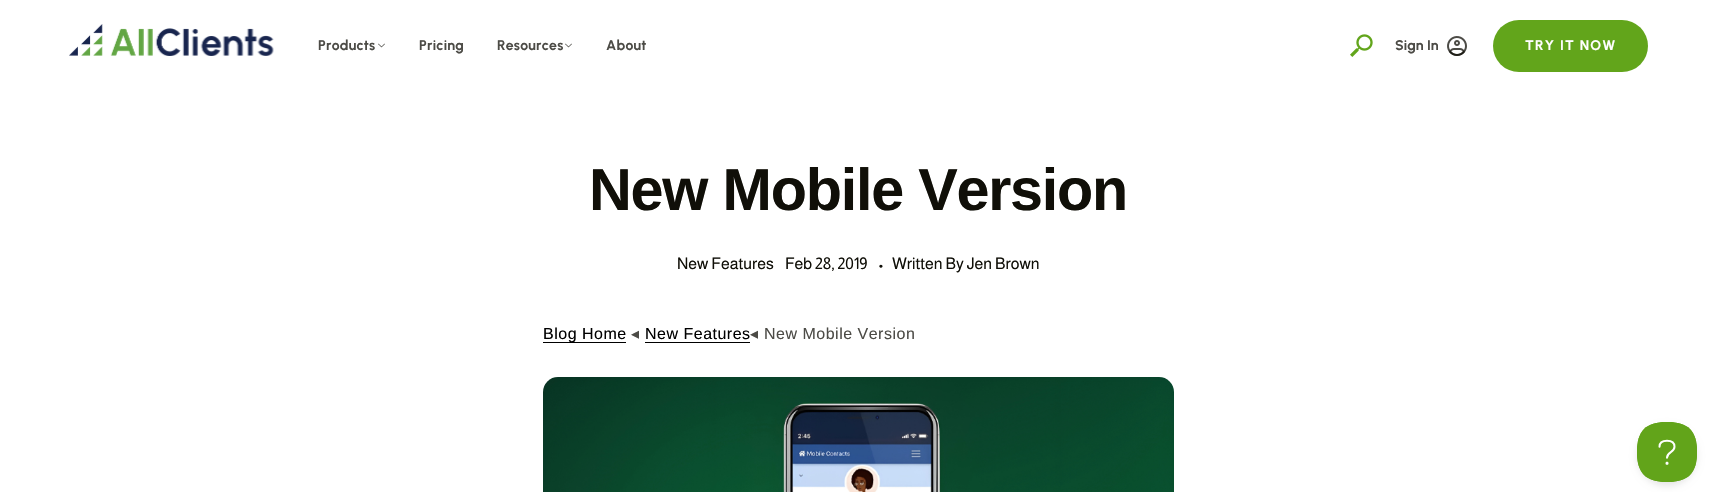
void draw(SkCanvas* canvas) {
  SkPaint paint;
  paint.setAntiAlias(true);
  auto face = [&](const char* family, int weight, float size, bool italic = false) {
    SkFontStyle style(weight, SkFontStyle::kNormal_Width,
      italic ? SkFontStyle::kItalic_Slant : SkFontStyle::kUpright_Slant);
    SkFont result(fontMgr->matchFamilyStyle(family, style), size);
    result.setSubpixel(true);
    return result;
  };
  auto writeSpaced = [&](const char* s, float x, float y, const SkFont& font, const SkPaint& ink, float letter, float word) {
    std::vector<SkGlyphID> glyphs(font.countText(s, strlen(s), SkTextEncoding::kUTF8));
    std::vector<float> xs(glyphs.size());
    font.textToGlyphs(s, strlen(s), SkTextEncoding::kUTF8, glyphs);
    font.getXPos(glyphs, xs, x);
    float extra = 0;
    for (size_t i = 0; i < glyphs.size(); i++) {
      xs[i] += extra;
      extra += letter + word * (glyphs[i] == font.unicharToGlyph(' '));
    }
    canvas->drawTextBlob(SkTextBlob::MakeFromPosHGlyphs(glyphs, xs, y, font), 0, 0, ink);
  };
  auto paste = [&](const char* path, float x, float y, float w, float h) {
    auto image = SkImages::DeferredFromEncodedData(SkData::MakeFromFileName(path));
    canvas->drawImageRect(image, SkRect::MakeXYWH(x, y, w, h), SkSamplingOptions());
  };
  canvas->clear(0xffffffff);
  paste("img/1.png", 69, 24, 205, 32);
  paste("img/2.png", 378, 43, 7, 5);
  paste("img/2.png", 565, 43, 7, 5);
  paste("img/3.png", 1350, 34, 23, 23);
  paste("img/4.png", 1447, 36, 20, 20);
  paint.setColor(0xff62a51b);
  canvas->drawRoundRect(SkRect::MakeXYWH(1493, 20, 155, 52), 26, 26, paint);
  paint.setColor(0xff000000);
  canvas->drawRect(SkRect::MakeXYWH(543, 342, 83, 1), paint);
  canvas->drawRect(SkRect::MakeXYWH(645, 342, 105, 1), paint);
  paste("img/5.png", 543, 377, 631, 115);
  paint.setColor(0x1a000000);
  paint.setMaskFilter(SkMaskFilter::MakeBlur(kNormal_SkBlurStyle, 3.5f));
  canvas->drawRoundRect(SkRect::MakeXYWH(1637, 426, 60, 60), 30, 30, paint);
  paint.setMaskFilter(nullptr);
  paste("img/6.png", 1637, 422, 60, 60);
  auto f0 = face("Urbanist", 700, 14);
  paint.setColor(0xff4c4b46);
  {
    const struct { const char* s; float x, y; } items[] = {
      {"Products", 318, 50},
      {"Pricing", 419, 50},
      {"Resources", 497, 50},
      {"About", 606, 50},
    };
    for (auto [s, x, y] : items) {
      writeSpaced(s, x, y, f0, paint, 0.25f, 0);
    }
  }
  canvas->drawString("Sign In", 1395, 50, f0, paint);
  paint.setColor(0xffffffff);
  writeSpaced("TRY IT NOW", 1525, 50, f0, paint, 1.25f, 0);
  auto f1 = face("Liberation Sans", 700, 59.25f);
  paint.setColor(0xff100f08);
  writeSpaced("New Mobile Version", 589, 210, f1, paint, -1.2f, 0);
  auto f2 = face("Almarai", 400, 16);
  {
    const struct { const char* s; float x, y; } items[] = {
      {"New Features", 677, 269},
      {"Feb 28, 2019", 785, 269},
      {"•", 878, 269},
      {"Written By Jen Brown", 892, 269},
    };
    for (auto [s, x, y] : items) {
      canvas->drawString(s, x, y, f2, paint);
    }
  }
  auto f3 = face("Liberation Sans", 400, 16);
  paint.setColor(0xff000000);
  writeSpaced("Blog Home", 543, 339, f3, paint, 0.5f, 0);
  auto f4 = face("DejaVu Sans", 400, 16);
  paint.setColor(0xff4c4b46);
  writeSpaced("◂", 631, 339, f4, paint, 0.5f, 0);
  paint.setColor(0xff000000);
  writeSpaced("New Features", 645, 339, f3, paint, 0.5f, 0);
  paint.setColor(0xff4c4b46);
  writeSpaced("◂", 750, 339, f4, paint, 0.5f, 0);
  writeSpaced("New Mobile Version", 764, 339, f3, paint, 0.5f, 0);
}
